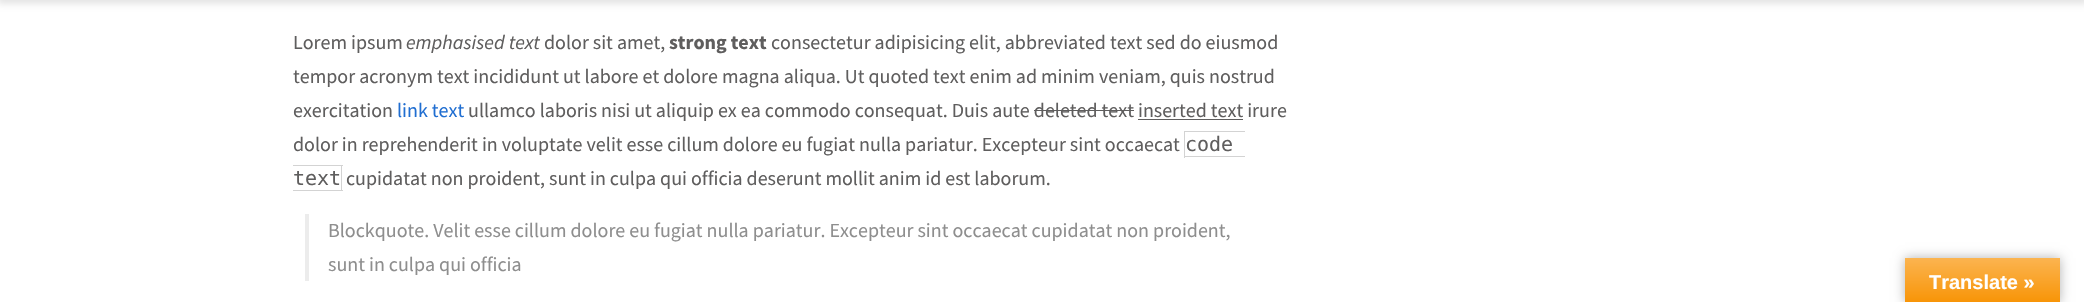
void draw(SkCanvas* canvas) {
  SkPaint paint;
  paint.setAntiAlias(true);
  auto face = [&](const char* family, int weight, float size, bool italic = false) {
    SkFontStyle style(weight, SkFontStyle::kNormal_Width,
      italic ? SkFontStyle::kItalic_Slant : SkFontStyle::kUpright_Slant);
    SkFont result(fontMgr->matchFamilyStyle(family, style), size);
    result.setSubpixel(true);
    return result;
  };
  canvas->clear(0xffffffff);
  paint.setColor(0x1a000000);
  paint.setMaskFilter(SkMaskFilter::MakeBlur(kNormal_SkBlurStyle, 3));
  canvas->drawRect(SkRect::MakeXYWH(-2, -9, 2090, 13), paint);
  paint.setMaskFilter(nullptr);
  {
    const struct { float x, y, w, h; SkColor color; } items[] = {
      {1034, 110, 100, 1, 0xff5f5e5e},
      {1138, 119, 105, 1, 0xff5f5e5e},
      {1184, 131, 61, 1, 0xffd3d3d3},
      {1184, 156, 61, 1, 0xffd3d3d3},
      {1184, 131, 1, 27, 0xffd3d3d3},
      {293, 165, 50, 1, 0xffd3d3d3},
      {341, 165, 1, 26, 0xffd3d3d3},
      {293, 190, 50, 1, 0xffd3d3d3},
      {305, 214, 4, 67, 0xffececec},
    };
    for (auto [x, y, w, h, color] : items) {
      paint.setColor(color);
      canvas->drawRect(SkRect::MakeXYWH(x, y, w, h), paint);
    }
  }
  paint.setColor(0x4d000000);
  paint.setMaskFilter(SkMaskFilter::MakeBlur(kNormal_SkBlurStyle, 5.5f));
  canvas->drawRect(SkRect::MakeXYWH(1905, 258, 155, 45), paint);
  paint.setMaskFilter(nullptr);
  {
    const SkColor colors[] = {0xfffbb450, 0xfff89406};
    const float stops[] = {0, 1};
    const SkPoint ends[] = {{1983, 258}, {1983, 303}};
    paint.setShader(SkGradientShader::MakeLinear(ends, colors, stops, 2, SkTileMode::kClamp));
    paint.setAlpha(255);
  }
  canvas->drawRect(SkRect::MakeXYWH(1905, 258, 155, 44), paint);
  auto f0 = face("Source Sans Pro", 400, 20);
  paint.setShader(nullptr);
  paint.setColor(0xff5f5e5e);
  canvas->drawString("Lorem ipsum", 293, 49, f0, paint);
  auto f1 = face("Source Sans Pro", 400, 20, true);
  canvas->drawString("emphasised text", 406, 49, f1, paint);
  canvas->drawString("dolor sit amet,", 544, 49, f0, paint);
  auto f2 = face("Source Sans Pro", 700, 20);
  canvas->drawString("strong text", 669, 49, f2, paint);
  {
    const struct { const char* s; float x, y; } items[] = {
      {"consectetur adipisicing elit, abbreviated text sed do eiusmod", 771, 49},
      {"tempor acronym text incididunt ut labore et dolore magna aliqua. Ut quoted text enim ad minim veniam, quis nostrud", 293, 83},
      {"exercitation", 293, 117},
    };
    for (auto [s, x, y] : items) {
      canvas->drawString(s, x, y, f0, paint);
    }
  }
  paint.setColor(0xff206ed1);
  canvas->drawString("link text", 397, 117, f0, paint);
  paint.setColor(0xff5f5e5e);
  canvas->drawString("ullamco laboris nisi ut aliquip ex ea commodo consequat. Duis aute deleted text inserted text irure", 468, 117, f0, paint);
  canvas->drawString("dolor in reprehenderit in voluptate velit esse cillum dolore eu fugiat nulla pariatur. Excepteur sint occaecat", 293, 151, f0, paint);
  auto f3 = face("DejaVu Sans Mono", 400, 20);
  canvas->drawString("code", 1185, 151, f3, paint);
  canvas->drawString("text", 293, 185, f3, paint);
  canvas->drawString("cupidatat non proident, sunt in culpa qui officia deserunt mollit anim id est laborum.", 346, 185, f0, paint);
  paint.setColor(0xff8e8e8e);
  canvas->drawString("Blockquote. Velit esse cillum dolore eu fugiat nulla pariatur. Excepteur sint occaecat cupidatat non proident,", 328, 237, f0, paint);
  canvas->drawString("sunt in culpa qui officia", 328, 271, f0, paint);
  auto f4 = face("Liberation Sans", 700, 20);
  paint.setColor(0xffffffff);
  canvas->drawString("Translate »", 1929, 289, f4, paint);
}
